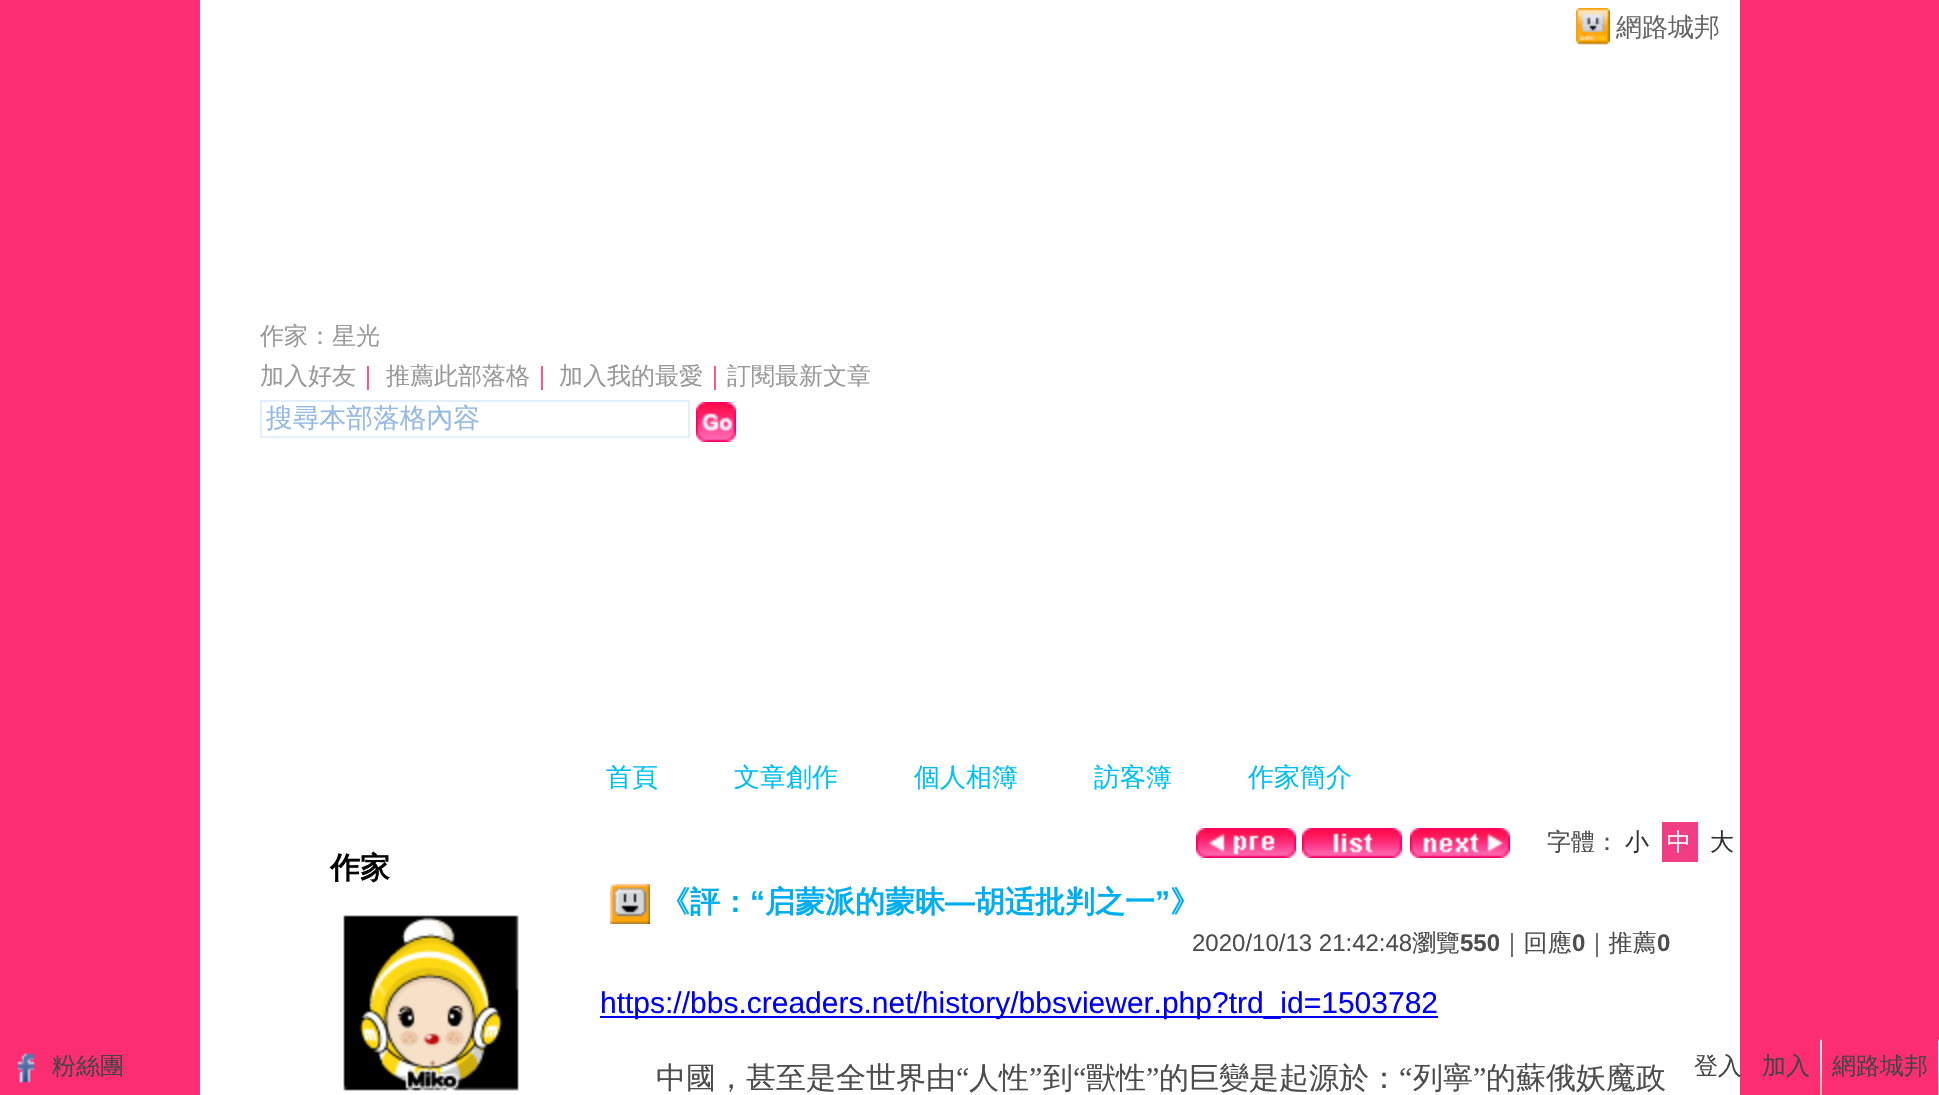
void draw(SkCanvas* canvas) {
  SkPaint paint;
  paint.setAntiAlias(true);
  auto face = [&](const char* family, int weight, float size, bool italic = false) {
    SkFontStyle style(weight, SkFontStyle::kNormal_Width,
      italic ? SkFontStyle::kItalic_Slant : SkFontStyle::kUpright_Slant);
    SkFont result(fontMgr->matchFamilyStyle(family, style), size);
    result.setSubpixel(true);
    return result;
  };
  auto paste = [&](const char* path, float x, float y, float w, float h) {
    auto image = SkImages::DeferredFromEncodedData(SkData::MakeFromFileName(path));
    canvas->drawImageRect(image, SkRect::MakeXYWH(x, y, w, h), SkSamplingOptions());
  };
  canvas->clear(0xfffc2d73);
  paint.setColor(0xffffffff);
  canvas->drawRect(SkRect::MakeXYWH(200, 0, 1540, 1095), paint);
  paste("img/1.png", 1576, 8, 34, 37);
  paint.setStroke(true);
  paint.setStrokeWidth(2);
  paint.setColor(0xffe1effc);
  canvas->drawRect(SkRect::MakeXYWH(261, 401, 428, 36), paint);
  paste("img/2.png", 696, 402, 40, 40);
  paste("img/3.png", 343, 915, 176, 176);
  paste("img/4.png", 1196, 828, 100, 30);
  paste("img/5.png", 1302, 828, 100, 30);
  paste("img/6.png", 1410, 828, 100, 30);
  paint.setStroke(false);
  paint.setColor(0xfff23d85);
  canvas->drawRect(SkRect::MakeXYWH(1662, 822, 36, 40), paint);
  paste("img/7.png", 610, 884, 40, 40);
  paint.setColor(0xff0000ee);
  canvas->drawRect(SkRect::MakeXYWH(600, 1016, 838, 2), paint);
  paste("img/8.png", 17, 1053, 18, 30);
  paste("img/9.png", 1820, 1039, 2, 56);
  paste("img/10.png", 1938, 1039, 1, 56);
  auto f0 = face("WenQuanYi Zen Hei", 500, 26);
  paint.setColor(0xff666666);
  canvas->drawString("網路城邦", 1616, 36, f0, paint);
  auto f1 = face("WenQuanYi Zen Hei", 500, 24);
  paint.setColor(0xff999999);
  canvas->drawString("作家：星光", 260, 344, f1, paint);
  canvas->drawString("加入好友", 260, 384, f1, paint);
  paint.setColor(0xfffc2d73);
  canvas->drawString("｜", 356, 384, f1, paint);
  paint.setColor(0xff999999);
  canvas->drawString("推薦此部落格", 386, 384, f1, paint);
  paint.setColor(0xfffc2d73);
  canvas->drawString("｜", 530, 384, f1, paint);
  paint.setColor(0xff999999);
  canvas->drawString("加入我的最愛", 559, 384, f1, paint);
  paint.setColor(0xfffc2d73);
  canvas->drawString("｜", 703, 384, f1, paint);
  paint.setColor(0xff999999);
  canvas->drawString("訂閱最新文章", 727, 384, f1, paint);
  auto f2 = face("WenQuanYi Zen Hei", 500, 26.75f);
  paint.setColor(0xff94b9e2);
  canvas->drawString("搜尋本部落格內容", 266, 427, f2, paint);
  paint.setColor(0xff00bff3);
  {
    const struct { const char* s; float x, y; } items[] = {
      {"首頁", 606, 786},
      {"文章創作", 734, 786},
      {"個人相簿", 914, 786},
      {"訪客簿", 1094, 786},
      {"作家簡介", 1248, 786},
    };
    for (auto [s, x, y] : items) {
      canvas->drawString(s, x, y, f0, paint);
    }
  }
  auto f3 = face("WenQuanYi Zen Hei", 700, 30);
  paint.setColor(0xff000000);
  canvas->drawString("作家", 330, 878, f3, paint);
  paint.setColor(0xff4d4d4d);
  canvas->drawString("字體：", 1547, 850, f1, paint);
  paint.setColor(0xff333333);
  canvas->drawString("小", 1625, 850, f1, paint);
  paint.setColor(0xffffffff);
  canvas->drawString("中", 1667, 850, f1, paint);
  paint.setColor(0xff333333);
  canvas->drawString("大", 1710, 850, f1, paint);
  paint.setColor(0xff00aeef);
  canvas->drawString("《評：", 660, 912, f3, paint);
  auto f4 = face("Liberation Sans", 700, 30);
  canvas->drawString("“", 750, 912, f4, paint);
  canvas->drawString("启蒙派的蒙昧", 765, 912, f3, paint);
  canvas->drawString("胡适批判之一", 975, 912, f3, paint);
  canvas->drawString("”", 1155, 912, f4, paint);
  canvas->drawString("》", 1170, 912, f3, paint);
  canvas->drawString("—", 945, 912, f4, paint);
  auto f5 = face("Liberation Sans", 400, 24);
  paint.setColor(0xff4d4d4d);
  canvas->drawString("2020/10/13 21:42:48", 1192, 951, f5, paint);
  canvas->drawString("瀏覽", 1412, 951, f1, paint);
  auto f6 = face("Liberation Sans", 700, 24);
  canvas->drawString("550", 1460, 951, f6, paint);
  canvas->drawString("｜回應", 1500, 951, f1, paint);
  canvas->drawString("0", 1572, 951, f6, paint);
  canvas->drawString("｜推薦", 1585, 951, f1, paint);
  canvas->drawString("0", 1657, 951, f6, paint);
  auto f7 = face("Liberation Sans", 400, 30);
  paint.setColor(0xff0000ee);
  canvas->drawString("https://bbs.creaders.net/history/bbsviewer.php?trd_id=1503782", 600, 1013, f7, paint);
  auto f8 = face("WenQuanYi Zen Hei", 500, 30);
  paint.setColor(0xff4d4d4d);
  canvas->drawString("中國，甚至是全世界由", 656, 1088, f8, paint);
  auto f9 = face("Liberation Serif", 400, 30);
  canvas->drawString("“", 956, 1088, f9, paint);
  canvas->drawString("人性", 969, 1088, f8, paint);
  canvas->drawString("”", 1029, 1088, f9, paint);
  canvas->drawString("到", 1043, 1088, f8, paint);
  canvas->drawString("“", 1073, 1088, f9, paint);
  canvas->drawString("獸性", 1086, 1088, f8, paint);
  canvas->drawString("”", 1146, 1088, f9, paint);
  canvas->drawString("的巨變是起源於：", 1159, 1088, f8, paint);
  canvas->drawString("“", 1399, 1088, f9, paint);
  canvas->drawString("列寧", 1413, 1088, f8, paint);
  canvas->drawString("”", 1473, 1088, f9, paint);
  canvas->drawString("的蘇俄妖魔政", 1486, 1088, f8, paint);
  paint.setColor(0xff444444);
  {
    const struct { const char* s; float x, y; } items[] = {
      {"粉絲團", 52, 1074},
      {"登入", 1694, 1074},
      {"加入", 1762, 1074},
      {"網路城邦", 1832, 1074},
    };
    for (auto [s, x, y] : items) {
      canvas->drawString(s, x, y, f1, paint);
    }
  }
}
